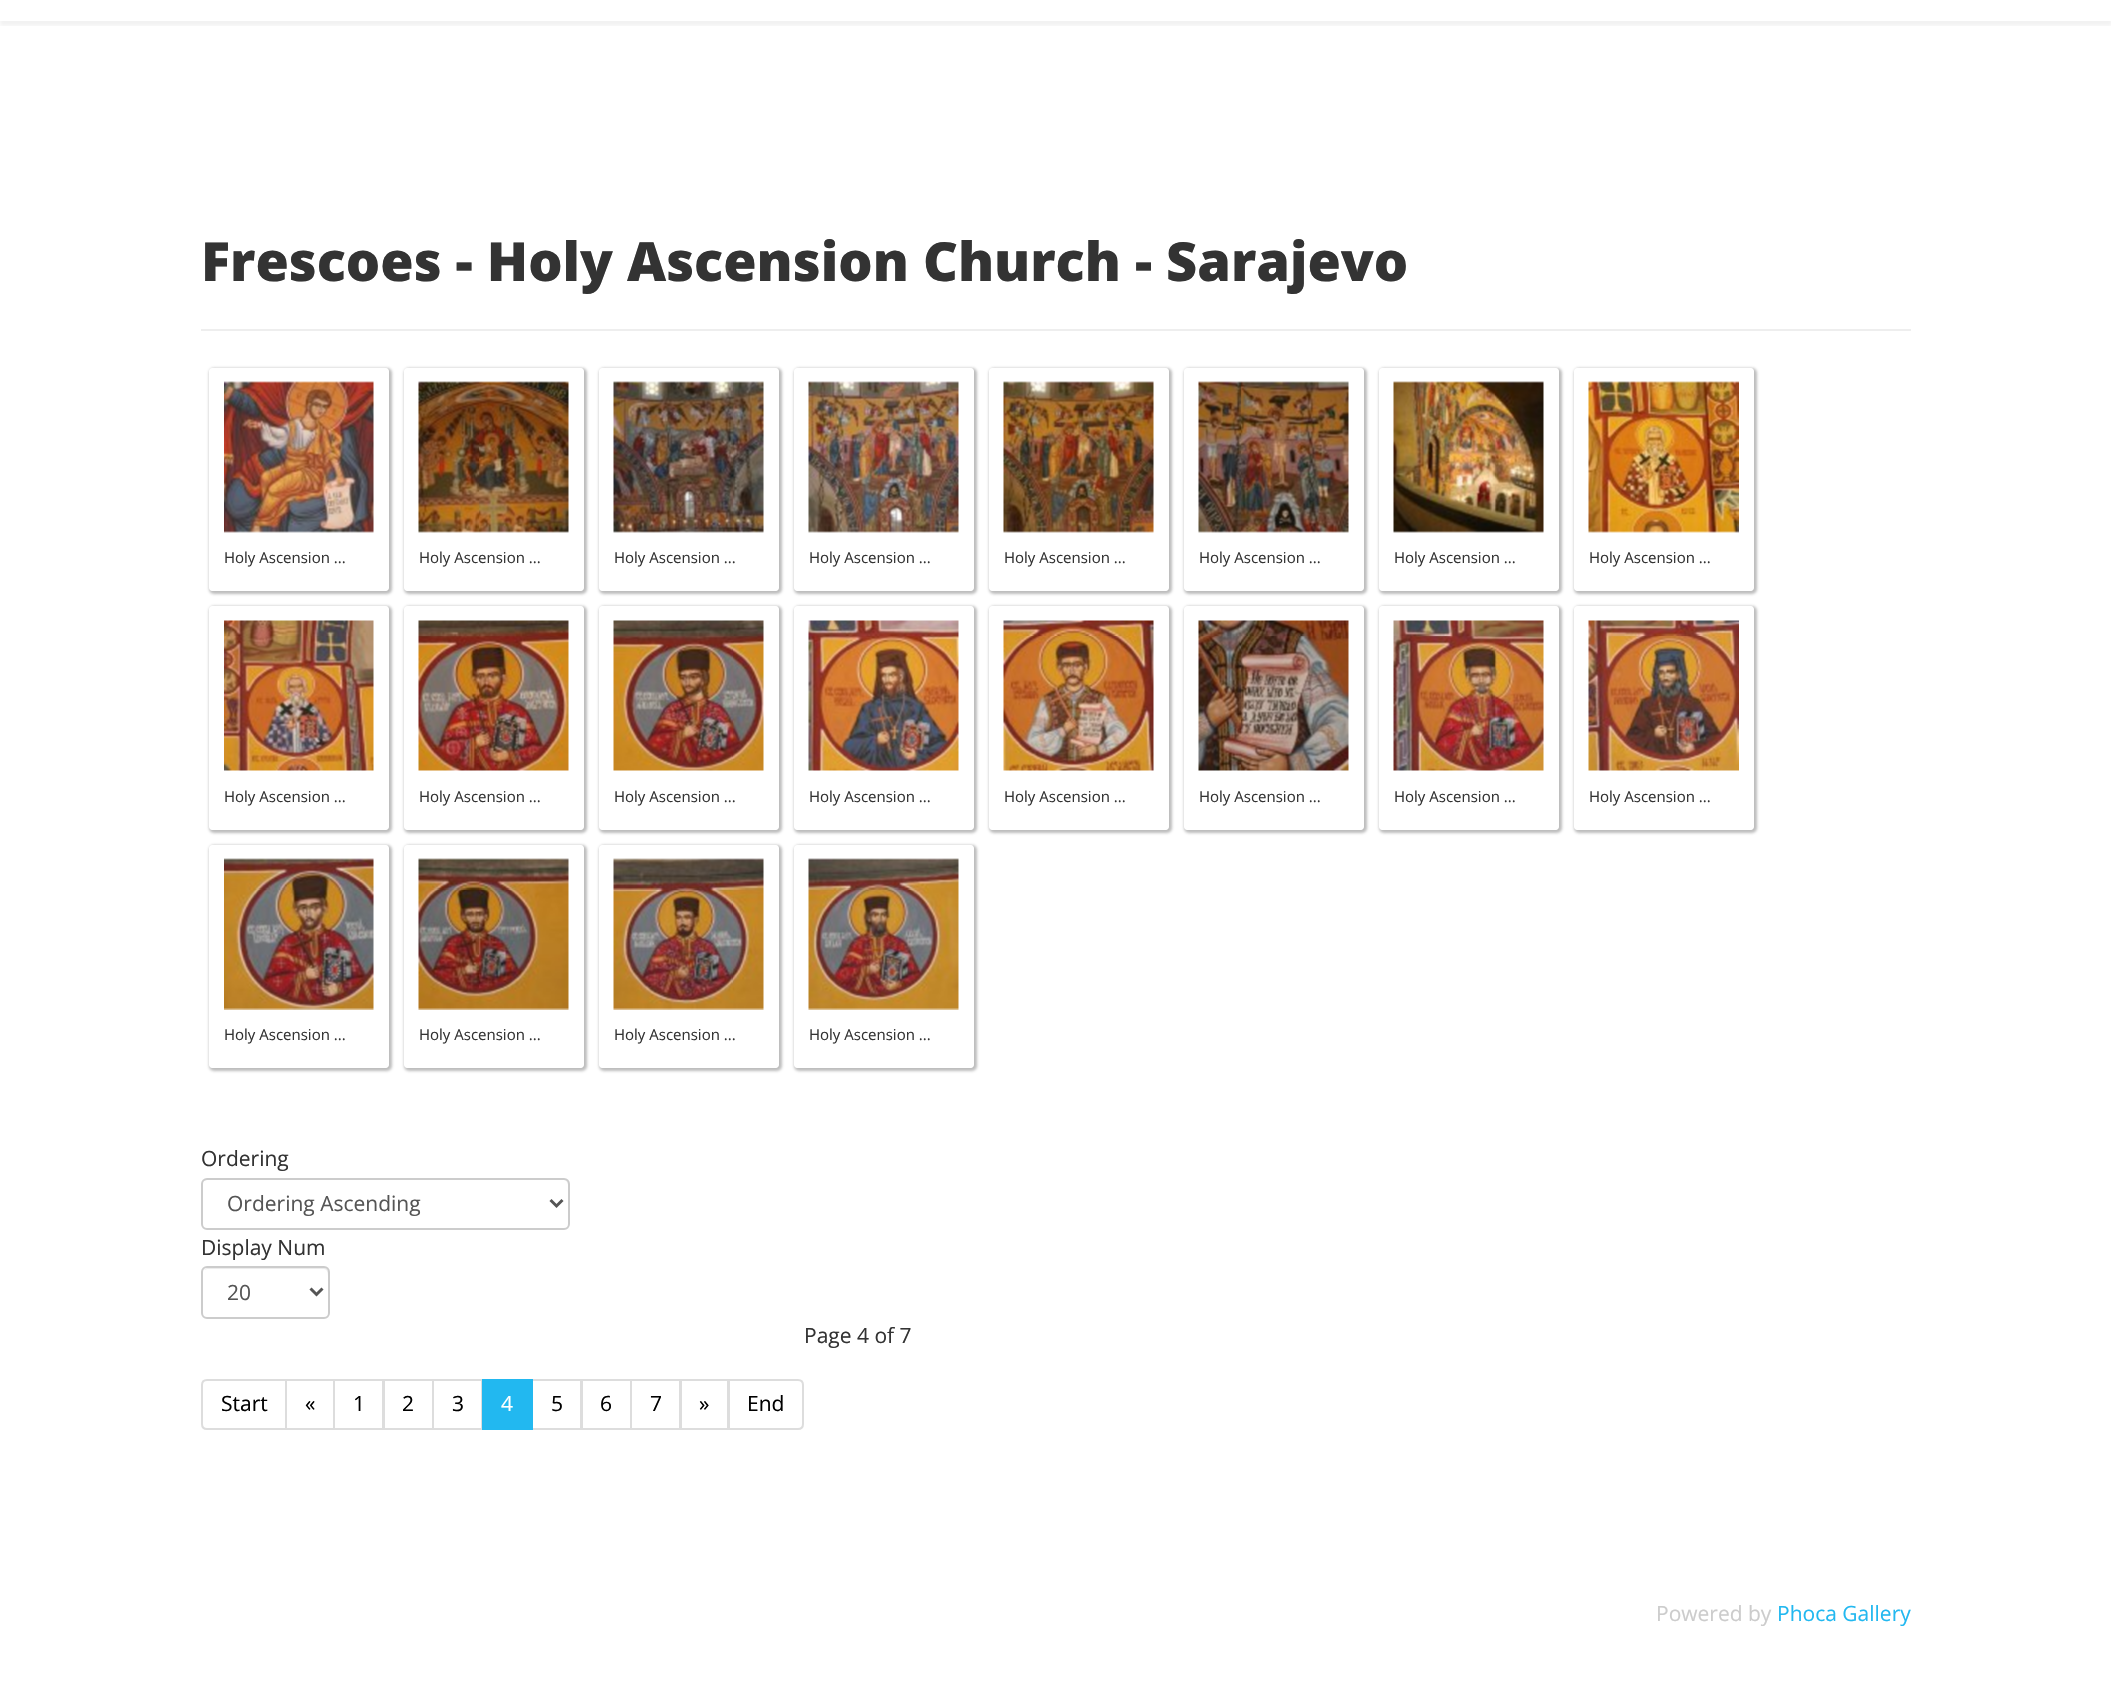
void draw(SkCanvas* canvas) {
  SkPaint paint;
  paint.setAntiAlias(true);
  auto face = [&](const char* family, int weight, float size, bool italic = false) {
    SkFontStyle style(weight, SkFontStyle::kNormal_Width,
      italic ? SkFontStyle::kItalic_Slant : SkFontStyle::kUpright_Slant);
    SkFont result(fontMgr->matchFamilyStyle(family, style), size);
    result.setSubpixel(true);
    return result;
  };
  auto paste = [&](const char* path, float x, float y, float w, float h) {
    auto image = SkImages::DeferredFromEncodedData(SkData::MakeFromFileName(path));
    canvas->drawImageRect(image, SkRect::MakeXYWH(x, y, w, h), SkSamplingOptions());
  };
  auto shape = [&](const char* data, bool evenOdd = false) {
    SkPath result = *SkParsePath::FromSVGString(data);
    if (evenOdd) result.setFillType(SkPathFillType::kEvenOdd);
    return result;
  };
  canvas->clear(0xffffffff);
  canvas->save();
  canvas->clipRect(SkRect::MakeXYWH(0, 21, 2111, 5));
  paint.setColor(0x0d000000);
  paint.setMaskFilter(SkMaskFilter::MakeBlur(kNormal_SkBlurStyle, 2));
  canvas->drawRect(SkRect::MakeXYWH(0, -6, 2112, 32), paint);
  paint.setMaskFilter(nullptr);
  canvas->restore();
  paint.setColor(0xffeeeeee);
  canvas->drawRect(SkRect::MakeXYWH(201, 329, 1710, 2), paint);
  canvas->save();
  canvas->clipPath(shape("M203 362H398V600H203ZM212 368H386C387.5 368 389 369.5 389 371V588C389 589.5 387.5 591 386 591H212C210.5 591 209 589.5 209 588V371C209 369.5 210.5 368 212 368Z", true), true);
  paint.setColor(0x80787878);
  paint.setMaskFilter(SkMaskFilter::MakeBlur(kNormal_SkBlurStyle, 1.5f));
  canvas->drawRoundRect(SkRect::MakeXYWH(209, 368, 183, 226), 5, 5, paint);
  paint.setMaskFilter(nullptr);
  canvas->restore();
  paste("img/1.png", 224, 381, 150, 152);
  canvas->save();
  canvas->clipPath(shape("M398 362H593V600H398ZM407 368H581C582.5 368 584 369.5 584 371V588C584 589.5 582.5 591 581 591H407C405.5 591 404 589.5 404 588V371C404 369.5 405.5 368 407 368Z", true), true);
  paint.setMaskFilter(SkMaskFilter::MakeBlur(kNormal_SkBlurStyle, 1.5f));
  canvas->drawRoundRect(SkRect::MakeXYWH(404, 368, 183, 226), 5, 5, paint);
  paint.setMaskFilter(nullptr);
  canvas->restore();
  paste("img/2.png", 418, 381, 151, 152);
  canvas->save();
  canvas->clipPath(shape("M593 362H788V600H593ZM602 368H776C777.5 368 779 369.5 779 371V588C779 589.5 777.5 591 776 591H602C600.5 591 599 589.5 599 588V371C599 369.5 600.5 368 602 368Z", true), true);
  paint.setMaskFilter(SkMaskFilter::MakeBlur(kNormal_SkBlurStyle, 1.5f));
  canvas->drawRoundRect(SkRect::MakeXYWH(599, 368, 183, 226), 5, 5, paint);
  paint.setMaskFilter(nullptr);
  canvas->restore();
  paste("img/3.png", 613, 381, 151, 152);
  canvas->save();
  canvas->clipPath(shape("M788 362H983V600H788ZM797 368H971C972.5 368 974 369.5 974 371V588C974 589.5 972.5 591 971 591H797C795.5 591 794 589.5 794 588V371C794 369.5 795.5 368 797 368Z", true), true);
  paint.setMaskFilter(SkMaskFilter::MakeBlur(kNormal_SkBlurStyle, 1.5f));
  canvas->drawRoundRect(SkRect::MakeXYWH(794, 368, 183, 226), 5, 5, paint);
  paint.setMaskFilter(nullptr);
  canvas->restore();
  paste("img/4.png", 808, 381, 151, 152);
  canvas->save();
  canvas->clipPath(shape("M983 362H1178V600H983ZM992 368H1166C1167.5 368 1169 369.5 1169 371V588C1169 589.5 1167.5 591 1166 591H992C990.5 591 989 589.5 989 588V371C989 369.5 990.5 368 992 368Z", true), true);
  paint.setMaskFilter(SkMaskFilter::MakeBlur(kNormal_SkBlurStyle, 1.5f));
  canvas->drawRoundRect(SkRect::MakeXYWH(989, 368, 183, 226), 5, 5, paint);
  paint.setMaskFilter(nullptr);
  canvas->restore();
  paste("img/5.png", 1003, 381, 151, 152);
  canvas->save();
  canvas->clipPath(shape("M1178 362H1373V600H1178ZM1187 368H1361C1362.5 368 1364 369.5 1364 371V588C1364 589.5 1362.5 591 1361 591H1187C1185.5 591 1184 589.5 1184 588V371C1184 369.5 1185.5 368 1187 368Z", true), true);
  paint.setMaskFilter(SkMaskFilter::MakeBlur(kNormal_SkBlurStyle, 1.5f));
  canvas->drawRoundRect(SkRect::MakeXYWH(1184, 368, 183, 226), 5, 5, paint);
  paint.setMaskFilter(nullptr);
  canvas->restore();
  paste("img/6.png", 1198, 381, 151, 152);
  canvas->save();
  canvas->clipPath(shape("M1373 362H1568V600H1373ZM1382 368H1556C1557.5 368 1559 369.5 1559 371V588C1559 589.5 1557.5 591 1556 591H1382C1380.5 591 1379 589.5 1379 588V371C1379 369.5 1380.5 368 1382 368Z", true), true);
  paint.setMaskFilter(SkMaskFilter::MakeBlur(kNormal_SkBlurStyle, 1.5f));
  canvas->drawRoundRect(SkRect::MakeXYWH(1379, 368, 183, 226), 5, 5, paint);
  paint.setMaskFilter(nullptr);
  canvas->restore();
  paste("img/7.png", 1393, 381, 151, 152);
  canvas->save();
  canvas->clipPath(shape("M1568 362H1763V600H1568ZM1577 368H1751C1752.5 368 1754 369.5 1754 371V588C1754 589.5 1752.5 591 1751 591H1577C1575.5 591 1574 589.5 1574 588V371C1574 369.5 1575.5 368 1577 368Z", true), true);
  paint.setMaskFilter(SkMaskFilter::MakeBlur(kNormal_SkBlurStyle, 1.5f));
  canvas->drawRoundRect(SkRect::MakeXYWH(1574, 368, 183, 226), 5, 5, paint);
  paint.setMaskFilter(nullptr);
  canvas->restore();
  paste("img/8.png", 1588, 381, 151, 152);
  canvas->save();
  canvas->clipPath(shape("M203 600H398V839H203ZM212 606H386C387.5 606 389 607.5 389 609V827C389 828.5 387.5 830 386 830H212C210.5 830 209 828.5 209 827V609C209 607.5 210.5 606 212 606Z", true), true);
  paint.setMaskFilter(SkMaskFilter::MakeBlur(kNormal_SkBlurStyle, 1.5f));
  canvas->drawRoundRect(SkRect::MakeXYWH(209, 606, 183, 227), 5, 5, paint);
  paint.setMaskFilter(nullptr);
  canvas->restore();
  paste("img/9.png", 224, 620, 150, 151);
  canvas->save();
  canvas->clipPath(shape("M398 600H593V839H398ZM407 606H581C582.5 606 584 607.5 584 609V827C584 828.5 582.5 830 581 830H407C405.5 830 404 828.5 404 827V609C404 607.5 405.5 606 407 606Z", true), true);
  paint.setMaskFilter(SkMaskFilter::MakeBlur(kNormal_SkBlurStyle, 1.5f));
  canvas->drawRoundRect(SkRect::MakeXYWH(404, 606, 183, 227), 5, 5, paint);
  paint.setMaskFilter(nullptr);
  canvas->restore();
  paste("img/10.png", 418, 620, 151, 151);
  canvas->save();
  canvas->clipPath(shape("M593 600H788V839H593ZM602 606H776C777.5 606 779 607.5 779 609V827C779 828.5 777.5 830 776 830H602C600.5 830 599 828.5 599 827V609C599 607.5 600.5 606 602 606Z", true), true);
  paint.setMaskFilter(SkMaskFilter::MakeBlur(kNormal_SkBlurStyle, 1.5f));
  canvas->drawRoundRect(SkRect::MakeXYWH(599, 606, 183, 227), 5, 5, paint);
  paint.setMaskFilter(nullptr);
  canvas->restore();
  paste("img/11.png", 613, 620, 151, 151);
  canvas->save();
  canvas->clipPath(shape("M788 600H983V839H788ZM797 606H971C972.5 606 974 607.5 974 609V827C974 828.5 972.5 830 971 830H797C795.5 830 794 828.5 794 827V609C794 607.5 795.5 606 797 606Z", true), true);
  paint.setMaskFilter(SkMaskFilter::MakeBlur(kNormal_SkBlurStyle, 1.5f));
  canvas->drawRoundRect(SkRect::MakeXYWH(794, 606, 183, 227), 5, 5, paint);
  paint.setMaskFilter(nullptr);
  canvas->restore();
  paste("img/12.png", 808, 620, 151, 151);
  canvas->save();
  canvas->clipPath(shape("M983 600H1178V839H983ZM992 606H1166C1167.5 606 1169 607.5 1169 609V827C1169 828.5 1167.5 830 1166 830H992C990.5 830 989 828.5 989 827V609C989 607.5 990.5 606 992 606Z", true), true);
  paint.setMaskFilter(SkMaskFilter::MakeBlur(kNormal_SkBlurStyle, 1.5f));
  canvas->drawRoundRect(SkRect::MakeXYWH(989, 606, 183, 227), 5, 5, paint);
  paint.setMaskFilter(nullptr);
  canvas->restore();
  paste("img/13.png", 1003, 620, 151, 151);
  canvas->save();
  canvas->clipPath(shape("M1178 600H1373V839H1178ZM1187 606H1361C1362.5 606 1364 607.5 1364 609V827C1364 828.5 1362.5 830 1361 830H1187C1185.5 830 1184 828.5 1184 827V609C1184 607.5 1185.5 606 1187 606Z", true), true);
  paint.setMaskFilter(SkMaskFilter::MakeBlur(kNormal_SkBlurStyle, 1.5f));
  canvas->drawRoundRect(SkRect::MakeXYWH(1184, 606, 183, 227), 5, 5, paint);
  paint.setMaskFilter(nullptr);
  canvas->restore();
  paste("img/14.png", 1198, 620, 151, 151);
  canvas->save();
  canvas->clipPath(shape("M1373 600H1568V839H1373ZM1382 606H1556C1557.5 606 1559 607.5 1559 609V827C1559 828.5 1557.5 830 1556 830H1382C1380.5 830 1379 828.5 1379 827V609C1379 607.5 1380.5 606 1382 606Z", true), true);
  paint.setMaskFilter(SkMaskFilter::MakeBlur(kNormal_SkBlurStyle, 1.5f));
  canvas->drawRoundRect(SkRect::MakeXYWH(1379, 606, 183, 227), 5, 5, paint);
  paint.setMaskFilter(nullptr);
  canvas->restore();
  paste("img/15.png", 1393, 620, 151, 151);
  canvas->save();
  canvas->clipPath(shape("M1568 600H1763V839H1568ZM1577 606H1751C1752.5 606 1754 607.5 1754 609V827C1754 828.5 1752.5 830 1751 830H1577C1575.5 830 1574 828.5 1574 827V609C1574 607.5 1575.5 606 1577 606Z", true), true);
  paint.setMaskFilter(SkMaskFilter::MakeBlur(kNormal_SkBlurStyle, 1.5f));
  canvas->drawRoundRect(SkRect::MakeXYWH(1574, 606, 183, 227), 5, 5, paint);
  paint.setMaskFilter(nullptr);
  canvas->restore();
  paste("img/16.png", 1588, 620, 151, 151);
  canvas->save();
  canvas->clipPath(shape("M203 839H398V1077H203ZM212 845H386C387.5 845 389 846.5 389 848V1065C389 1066.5 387.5 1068 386 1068H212C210.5 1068 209 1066.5 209 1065V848C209 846.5 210.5 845 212 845Z", true), true);
  paint.setMaskFilter(SkMaskFilter::MakeBlur(kNormal_SkBlurStyle, 1.5f));
  canvas->drawRoundRect(SkRect::MakeXYWH(209, 845, 183, 226), 5, 5, paint);
  paint.setMaskFilter(nullptr);
  canvas->restore();
  paste("img/17.png", 224, 858, 150, 152);
  canvas->save();
  canvas->clipPath(shape("M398 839H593V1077H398ZM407 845H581C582.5 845 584 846.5 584 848V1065C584 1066.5 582.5 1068 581 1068H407C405.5 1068 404 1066.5 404 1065V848C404 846.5 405.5 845 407 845Z", true), true);
  paint.setMaskFilter(SkMaskFilter::MakeBlur(kNormal_SkBlurStyle, 1.5f));
  canvas->drawRoundRect(SkRect::MakeXYWH(404, 845, 183, 226), 5, 5, paint);
  paint.setMaskFilter(nullptr);
  canvas->restore();
  paste("img/18.png", 418, 858, 151, 152);
  canvas->save();
  canvas->clipPath(shape("M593 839H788V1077H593ZM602 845H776C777.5 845 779 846.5 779 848V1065C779 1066.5 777.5 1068 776 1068H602C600.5 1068 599 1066.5 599 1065V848C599 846.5 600.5 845 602 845Z", true), true);
  paint.setMaskFilter(SkMaskFilter::MakeBlur(kNormal_SkBlurStyle, 1.5f));
  canvas->drawRoundRect(SkRect::MakeXYWH(599, 845, 183, 226), 5, 5, paint);
  paint.setMaskFilter(nullptr);
  canvas->restore();
  paste("img/19.png", 613, 858, 151, 152);
  canvas->save();
  canvas->clipPath(shape("M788 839H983V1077H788ZM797 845H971C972.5 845 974 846.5 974 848V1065C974 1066.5 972.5 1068 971 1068H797C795.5 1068 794 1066.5 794 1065V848C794 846.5 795.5 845 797 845Z", true), true);
  paint.setMaskFilter(SkMaskFilter::MakeBlur(kNormal_SkBlurStyle, 1.5f));
  canvas->drawRoundRect(SkRect::MakeXYWH(794, 845, 183, 226), 5, 5, paint);
  paint.setMaskFilter(nullptr);
  canvas->restore();
  paste("img/20.png", 808, 858, 151, 152);
  paint.setColor(0xffececec);
  canvas->drawPath(shape("M207 1180H564C566 1180 568 1183 568 1185V1227C569 1226 569 1225 569 1224V1184C569 1181 567 1179 564 1179H208C206 1179 204 1180 203 1182C204 1181 206 1180 207 1180Z"), paint);
  paint.setStroke(true);
  paint.setStrokeWidth(2);
  paint.setColor(0xffcccccc);
  canvas->drawRoundRect(SkRect::MakeXYWH(202, 1179, 367, 50), 5, 5, paint);
  paint.setStrokeWidth(3);
  paint.setColor(0xff555555);
  canvas->drawPath(shape("M550.5 1200L556.5 1206L562.5 1200"), paint);
  paint.setStroke(false);
  paint.setColor(0xffececec);
  canvas->drawPath(shape("M207 1269H324C329 1269 328 1278 328 1281V1315C329 1314 329 1313 329 1312V1273C329 1270 327 1268 324 1268H208C206 1268 205 1269 204 1270Z"), paint);
  paint.setStroke(true);
  paint.setStrokeWidth(2);
  paint.setColor(0xffcccccc);
  canvas->drawRoundRect(SkRect::MakeXYWH(202, 1267, 127, 51), 5, 5, paint);
  paint.setStrokeWidth(3);
  paint.setColor(0xff555555);
  canvas->drawPath(shape("M310.5 1288.5L316.5 1294.5L322.5 1288.5"), paint);
  paint.setStrokeWidth(2);
  paint.setColor(0xffdddddd);
  canvas->drawPath(shape("M207 1380H286V1429H207C204 1429 202 1427 202 1424V1385C202 1382 204 1380 207 1380Z"), paint);
  canvas->drawRect(SkRect::MakeXYWH(286, 1380, 48, 49), paint);
  canvas->drawRect(SkRect::MakeXYWH(334, 1380, 49, 49), paint);
  canvas->drawRect(SkRect::MakeXYWH(384, 1380, 49, 49), paint);
  canvas->drawRect(SkRect::MakeXYWH(433, 1380, 49, 49), paint);
  canvas->drawRect(SkRect::MakeXYWH(532, 1380, 49, 49), paint);
  paint.setStroke(false);
  paint.setColor(0xff22b8f0);
  canvas->drawRect(SkRect::MakeXYWH(482, 1379, 51, 51), paint);
  paint.setStroke(true);
  paint.setColor(0xffdddddd);
  canvas->drawRect(SkRect::MakeXYWH(582, 1380, 49, 49), paint);
  canvas->drawRect(SkRect::MakeXYWH(631, 1380, 49, 49), paint);
  canvas->drawRect(SkRect::MakeXYWH(681, 1380, 47, 49), paint);
  paint.setStroke(false);
  paint.setColor(0xffffffff);
  canvas->drawPath(shape("M729 1380H798C801 1380 803 1382 803 1385V1424C803 1427 801 1429 798 1429H729Z"), paint);
  paint.setStroke(true);
  paint.setColor(0xffdddddd);
  canvas->drawPath(shape("M729 1380H798C801 1380 803 1382 803 1385V1424C803 1427 801 1429 798 1429H729Z"), paint);
  auto f0 = face("Open Sans", 800, 54);
  paint.setStroke(false);
  paint.setColor(0xff333333);
  canvas->drawString("Frescoes - Holy Ascension Church - Sarajevo", 201, 281, f0, paint);
  auto f1 = face("Open Sans", 400, 15);
  {
    const struct { const char* s; float x, y; } items[] = {
      {"Holy Ascension ...", 224, 563},
      {"Holy Ascension ...", 419, 563},
      {"Holy Ascension ...", 614, 563},
      {"Holy Ascension ...", 809, 563},
      {"Holy Ascension ...", 1004, 563},
      {"Holy Ascension ...", 1199, 563},
      {"Holy Ascension ...", 1394, 563},
      {"Holy Ascension ...", 1589, 563},
      {"Holy Ascension ...", 224, 802},
      {"Holy Ascension ...", 419, 802},
      {"Holy Ascension ...", 614, 802},
      {"Holy Ascension ...", 809, 802},
      {"Holy Ascension ...", 1004, 802},
      {"Holy Ascension ...", 1199, 802},
      {"Holy Ascension ...", 1394, 802},
      {"Holy Ascension ...", 1589, 802},
      {"Holy Ascension ...", 224, 1040},
      {"Holy Ascension ...", 419, 1040},
      {"Holy Ascension ...", 614, 1040},
      {"Holy Ascension ...", 809, 1040},
    };
    for (auto [s, x, y] : items) {
      canvas->drawString(s, x, y, f1, paint);
    }
  }
  auto f2 = face("Open Sans", 400, 21);
  canvas->drawString("Ordering", 201, 1166, f2, paint);
  paint.setColor(0xff555555);
  canvas->drawString("Ordering Ascending", 227, 1211, f2, paint);
  paint.setColor(0xff333333);
  canvas->drawString("Display Num", 201, 1255, f2, paint);
  paint.setColor(0xff555555);
  canvas->drawString("20", 227, 1300, f2, paint);
  paint.setColor(0xff333333);
  canvas->drawString("Page 4 of 7", 804, 1343, f2, paint);
  paint.setColor(0xff000000);
  {
    const struct { const char* s; float x, y; } items[] = {
      {"Start", 221, 1411},
      {"«", 305, 1411},
      {"1", 353, 1411},
      {"2", 402, 1411},
      {"3", 452, 1411},
    };
    for (auto [s, x, y] : items) {
      canvas->drawString(s, x, y, f2, paint);
    }
  }
  paint.setColor(0xffffffff);
  canvas->drawString("4", 501, 1411, f2, paint);
  paint.setColor(0xff000000);
  {
    const struct { const char* s; float x, y; } items[] = {
      {"5", 551, 1411},
      {"6", 600, 1411},
      {"7", 650, 1411},
      {"»", 699, 1411},
      {"End", 747, 1411},
    };
    for (auto [s, x, y] : items) {
      canvas->drawString(s, x, y, f2, paint);
    }
  }
  paint.setColor(0xffcccccc);
  canvas->drawString("Powered by", 1656, 1621, f2, paint);
  paint.setColor(0xff22b8f0);
  canvas->drawString("Phoca Gallery", 1777, 1621, f2, paint);
}
